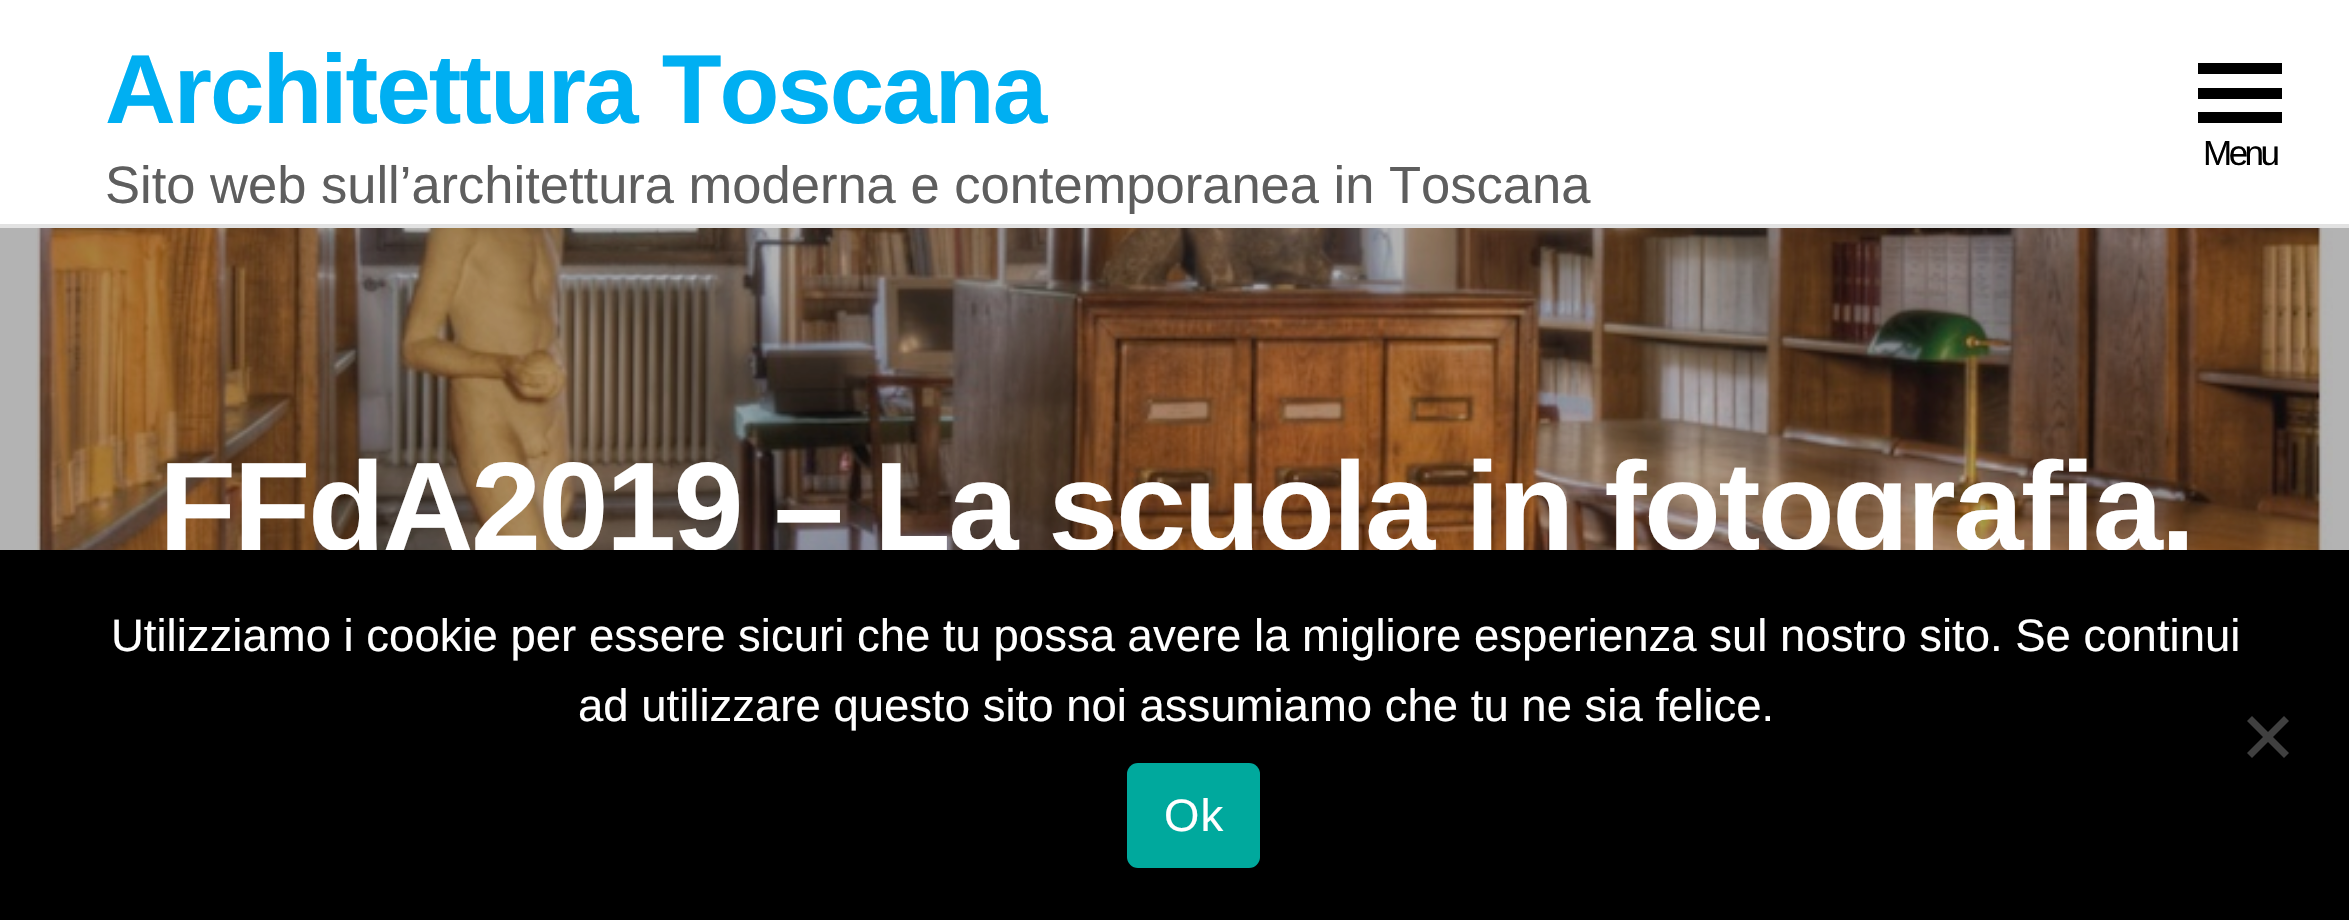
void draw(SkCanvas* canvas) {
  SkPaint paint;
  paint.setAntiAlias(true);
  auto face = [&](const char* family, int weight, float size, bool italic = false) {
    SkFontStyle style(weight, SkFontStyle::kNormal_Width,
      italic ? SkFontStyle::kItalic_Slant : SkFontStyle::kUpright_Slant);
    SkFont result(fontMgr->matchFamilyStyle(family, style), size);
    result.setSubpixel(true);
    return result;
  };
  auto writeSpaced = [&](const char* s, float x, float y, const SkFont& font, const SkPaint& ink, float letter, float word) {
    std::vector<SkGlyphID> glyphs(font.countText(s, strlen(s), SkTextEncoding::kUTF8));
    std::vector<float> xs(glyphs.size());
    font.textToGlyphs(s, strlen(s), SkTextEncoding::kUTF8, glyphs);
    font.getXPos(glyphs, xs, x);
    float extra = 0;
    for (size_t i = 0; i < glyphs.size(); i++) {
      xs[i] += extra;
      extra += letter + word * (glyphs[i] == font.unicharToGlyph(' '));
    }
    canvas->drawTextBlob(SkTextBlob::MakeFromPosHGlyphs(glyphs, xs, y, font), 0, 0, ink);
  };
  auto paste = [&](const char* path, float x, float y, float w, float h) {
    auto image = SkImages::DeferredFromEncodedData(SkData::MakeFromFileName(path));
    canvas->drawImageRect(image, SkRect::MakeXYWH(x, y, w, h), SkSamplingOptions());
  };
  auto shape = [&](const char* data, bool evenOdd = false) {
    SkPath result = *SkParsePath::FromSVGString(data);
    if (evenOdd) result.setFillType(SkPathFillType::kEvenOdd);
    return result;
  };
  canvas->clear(0xffb3b3b3);
  {
    const struct { float x, y, w, h; SkColor color; } items[] = {
      {0, 0, 2349, 224, 0xffffffff},
      {0, 224, 2349, 4, 0xffe2e2e2},
      {2198, 63, 84, 11, 0xff000000},
      {2198, 88, 84, 11, 0xff000000},
      {2198, 112, 84, 11, 0xff000000},
    };
    for (auto [x, y, w, h, color] : items) {
      paint.setColor(color);
      canvas->drawRect(SkRect::MakeXYWH(x, y, w, h), paint);
    }
  }
  paste("img/1.png", 35, 228, 2298, 322);
  auto f0 = face("Liberation Sans", 700, 98);
  paint.setColor(0xff00aff2);
  writeSpaced("Architettura Toscana", 105, 123, f0, paint, -2, 0);
  auto f1 = face("Liberation Sans", 400, 52.5f);
  paint.setColor(0xff5e5e5e);
  canvas->drawString("Sito web sull’architettura moderna e contemporanea in Toscana", 105, 203, f1, paint);
  auto f2 = face("Liberation Sans", 400, 35);
  paint.setColor(0xff000000);
  writeSpaced("Menu", 2203, 165, f2, paint, -3.5f, 0);
  auto f3 = face("Liberation Sans", 700, 126);
  paint.setColor(0xffffffff);
  writeSpaced("FFdA2019 – La scuola in fotografia.", 159, 550, f3, paint, -2.5f, 0);
  paint.setColor(0xff000000);
  canvas->drawRect(SkRect::MakeXYWH(0, 550, 2349, 370), paint);
  auto f4 = face("Liberation Sans", 400, 45.5f);
  paint.setColor(0xffffffff);
  canvas->drawString("Utilizziamo i cookie per essere sicuri che tu possa avere la migliore esperienza sul nostro sito. Se continui", 111, 651, f4, paint);
  canvas->drawString("ad utilizzare questo sito noi assumiamo che tu ne sia felice.", 578, 721, f4, paint);
  paint.setColor(0xff404040);
  canvas->drawPath(shape("M2284 716L2289 721L2252 758L2247 753Z"), paint);
  canvas->drawPath(shape("M2247 721L2252 716L2289 753L2284 758Z"), paint);
  paint.setColor(0xff00a99d);
  canvas->drawRoundRect(SkRect::MakeXYWH(1127, 763, 133, 105), 11, 11, paint);
  paint.setColor(0xffffffff);
  writeSpaced("Ok", 1164, 831, f4, paint, 1, 0);
}
